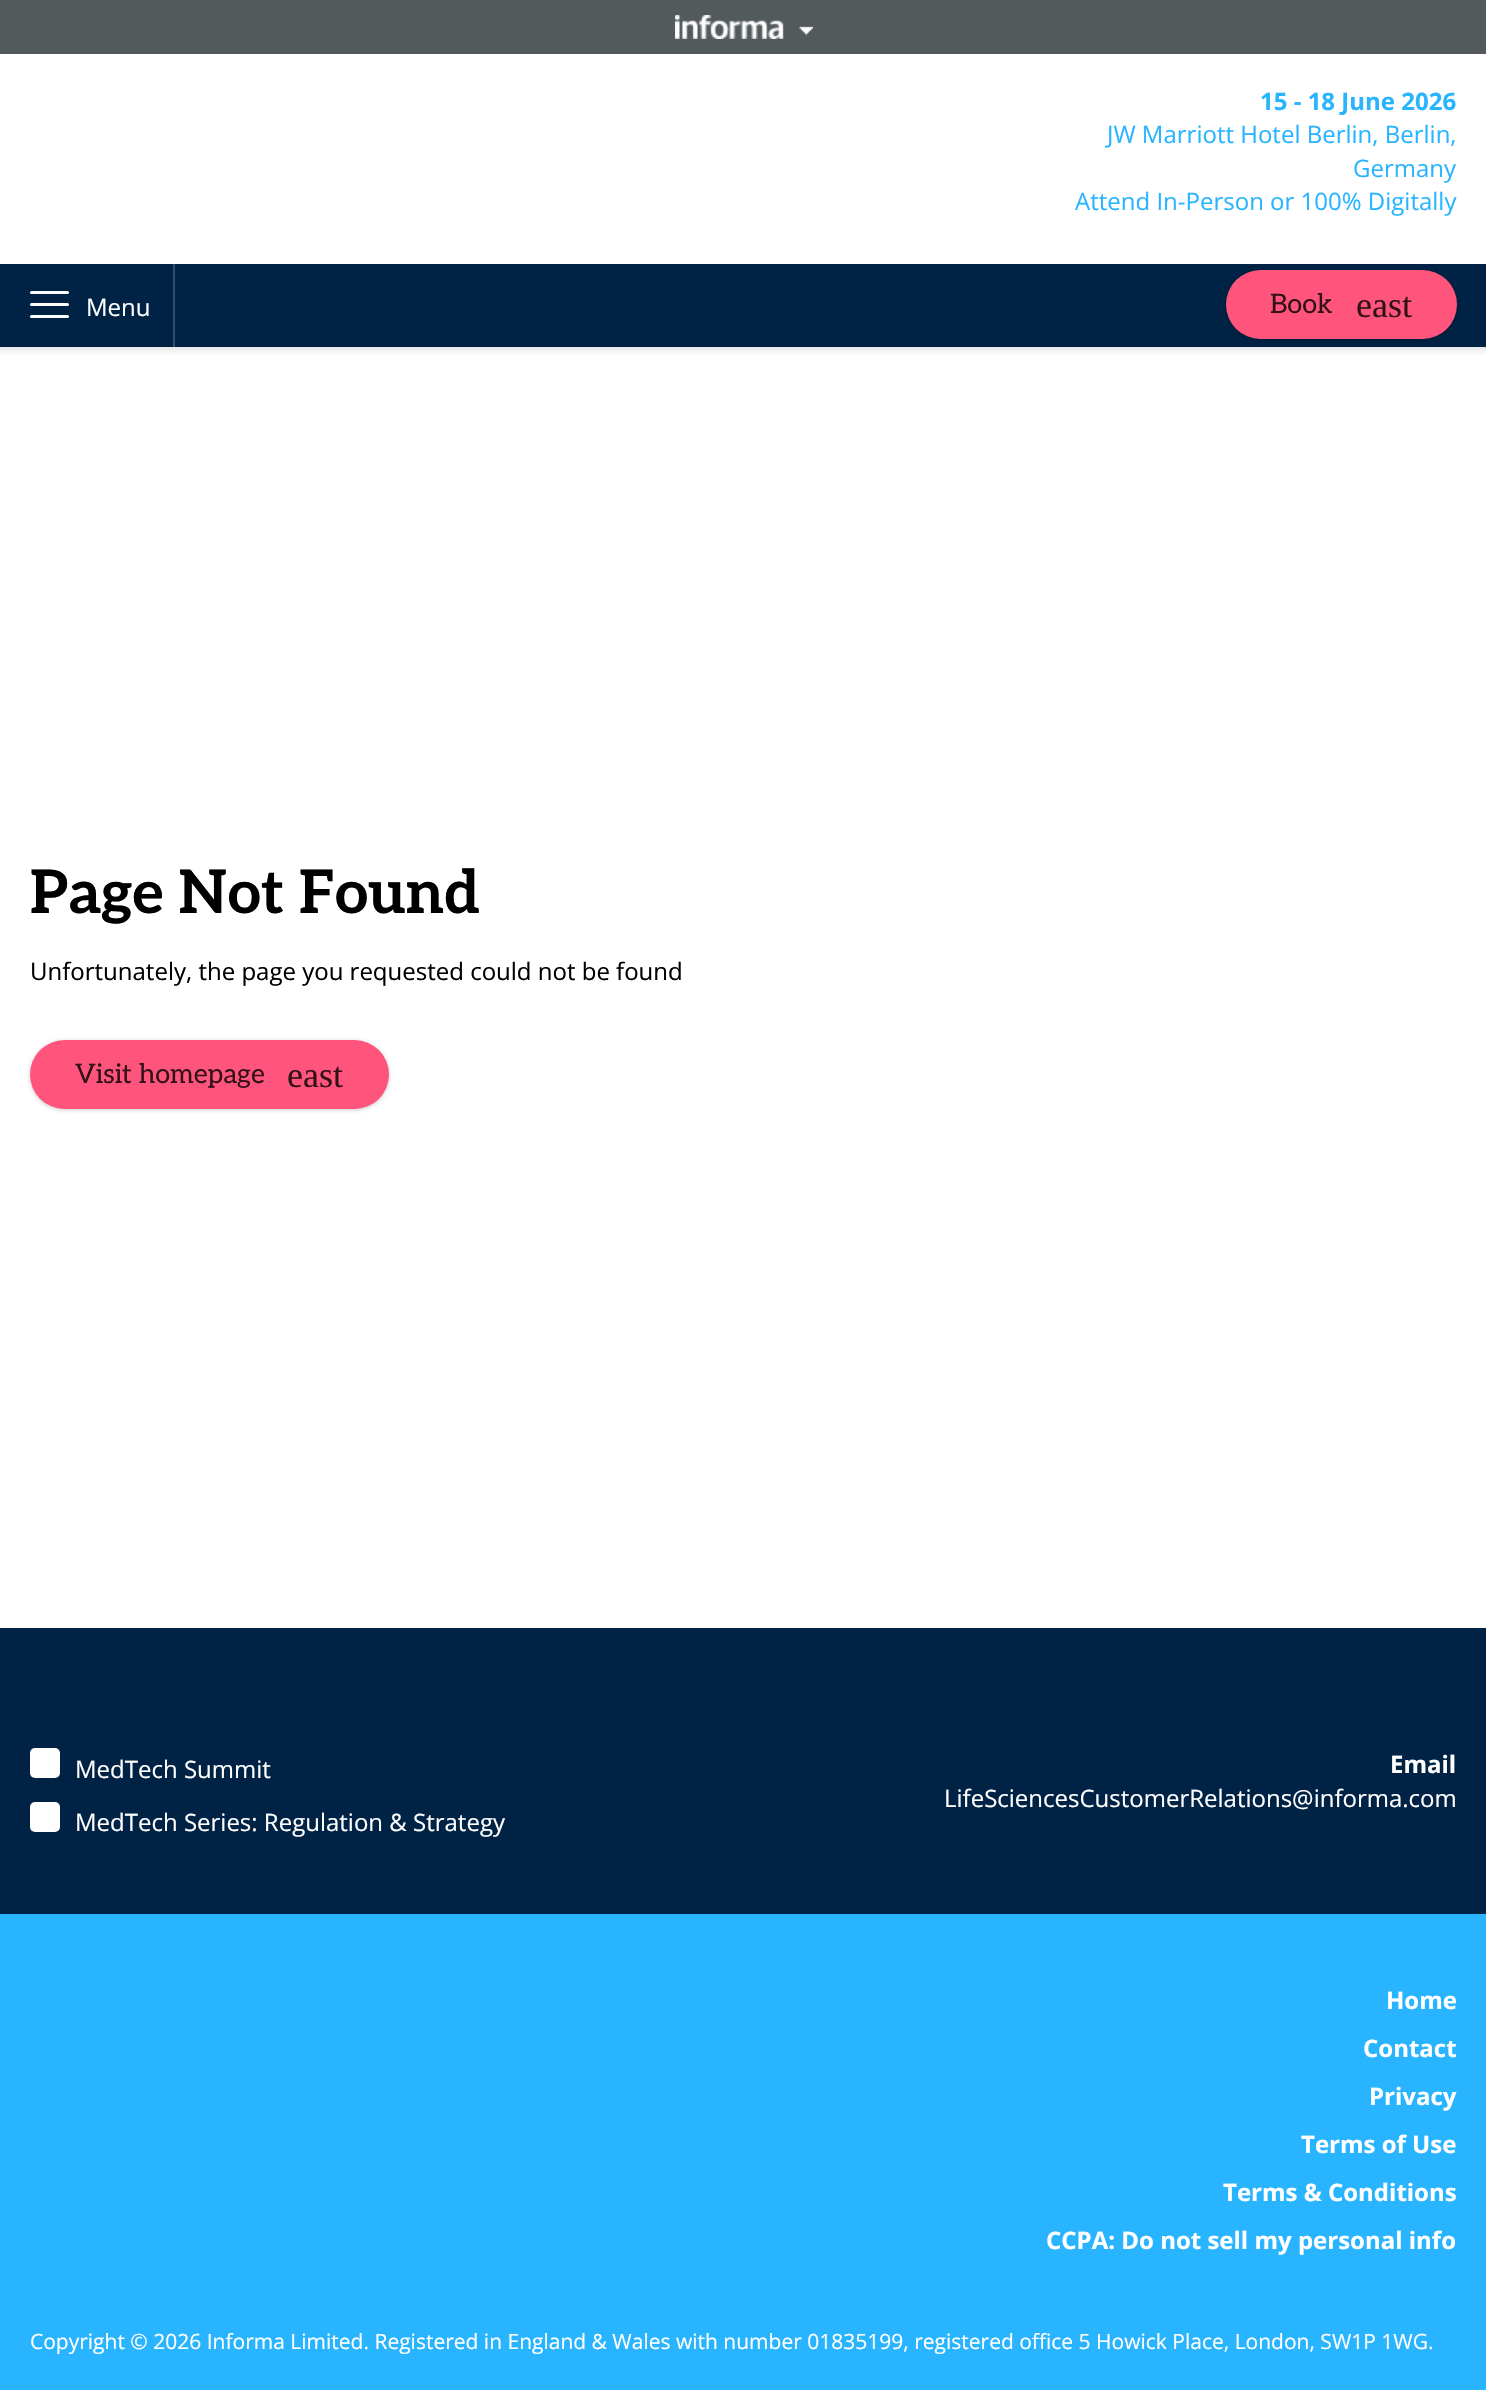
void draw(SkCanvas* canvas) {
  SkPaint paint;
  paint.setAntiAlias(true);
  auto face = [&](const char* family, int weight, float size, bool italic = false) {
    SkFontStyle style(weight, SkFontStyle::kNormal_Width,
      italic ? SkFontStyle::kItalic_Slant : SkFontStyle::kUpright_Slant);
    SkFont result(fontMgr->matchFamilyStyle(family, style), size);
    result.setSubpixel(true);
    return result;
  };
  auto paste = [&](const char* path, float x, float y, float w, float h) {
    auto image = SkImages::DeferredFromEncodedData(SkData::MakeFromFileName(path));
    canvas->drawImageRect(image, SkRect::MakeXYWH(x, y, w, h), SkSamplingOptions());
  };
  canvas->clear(0xffffffff);
  paint.setColor(0xff525a5c);
  canvas->drawRect(SkRect::MakeXYWH(0, 0, 1486, 54), paint);
  paste("img/1.png", 675, 15, 138, 24);
  paint.setColor(0xff002244);
  canvas->drawRect(SkRect::MakeXYWH(0, 264, 1486, 83), paint);
  paint.setColor(0xffffffff);
  canvas->drawRoundRect(SkRect::MakeXYWH(30, 291, 39, 3), 1.5f, 1.5f, paint);
  canvas->drawRoundRect(SkRect::MakeXYWH(30, 303, 39, 3), 1.5f, 1.5f, paint);
  canvas->drawRoundRect(SkRect::MakeXYWH(30, 315, 39, 3), 1.5f, 1.5f, paint);
  paint.setColor(0xff334e69);
  canvas->drawRect(SkRect::MakeXYWH(173, 264, 2, 83), paint);
  paint.setColor(0x33000000);
  paint.setMaskFilter(SkMaskFilter::MakeBlur(kNormal_SkBlurStyle, 2));
  canvas->drawRoundRect(SkRect::MakeXYWH(1226, 272, 231, 69), 34.5f, 34.5f, paint);
  paint.setMaskFilter(nullptr);
  paint.setColor(0xffff547c);
  canvas->drawRoundRect(SkRect::MakeXYWH(1226, 270, 231, 69), 34.5f, 34.5f, paint);
  {
    const SkColor colors[] = {0xffe5e5e5, 0xffffffff};
    const float stops[] = {0, 1};
    const SkPoint ends[] = {{743, 346}, {743, 356}};
    paint.setShader(SkGradientShader::MakeLinear(ends, colors, stops, 2, SkTileMode::kClamp));
    paint.setAlpha(255);
  }
  canvas->drawRect(SkRect::MakeXYWH(0, 347, 1486, 8), paint);
  paint.setShader(nullptr);
  paint.setColor(0x33000000);
  paint.setMaskFilter(SkMaskFilter::MakeBlur(kNormal_SkBlurStyle, 2));
  canvas->drawRoundRect(SkRect::MakeXYWH(30, 1041, 359, 69), 34.5f, 34.5f, paint);
  paint.setMaskFilter(nullptr);
  paint.setColor(0xffff547c);
  canvas->drawRoundRect(SkRect::MakeXYWH(30, 1040, 359, 69), 34.5f, 34.5f, paint);
  paint.setColor(0xff002244);
  canvas->drawRect(SkRect::MakeXYWH(0, 1628, 1486, 286), paint);
  paint.setColor(0xffffffff);
  canvas->drawRoundRect(SkRect::MakeXYWH(30, 1748, 30, 30), 5, 5, paint);
  canvas->drawRoundRect(SkRect::MakeXYWH(30, 1802, 30, 30), 5, 5, paint);
  paint.setColor(0xff28b4ff);
  canvas->drawRect(SkRect::MakeXYWH(0, 1914, 1486, 476), paint);
  auto f0 = face("Open Sans", 700, 24);
  canvas->drawString("15 - 18 June 2026", 1260, 110, f0, paint);
  auto f1 = face("Open Sans", 400, 24);
  {
    const struct { const char* s; float x, y; } items[] = {
      {"JW Marriott Hotel Berlin, Berlin,", 1107, 143},
      {"Germany", 1353, 177},
      {"Attend In-Person or 100% Digitally", 1075, 210},
    };
    for (auto [s, x, y] : items) {
      canvas->drawString(s, x, y, f1, paint);
    }
  }
  paint.setColor(0xffffffff);
  canvas->drawString("Menu", 86, 316, f1, paint);
  auto f2 = face("Aleo", 400, 27);
  paint.setColor(0xff331119);
  canvas->drawString("Book", 1270, 313, f2, paint);
  auto f3 = face("Liberation Serif", 400, 36);
  canvas->drawString("east", 1356, 317, f3, paint);
  auto f4 = face("Aleo", 700, 60);
  paint.setColor(0xff000000);
  canvas->drawString("Page Not Found", 30, 913, f4, paint);
  canvas->drawString("Unfortunately, the page you requested could not be found", 30, 980, f1, paint);
  paint.setColor(0xff331119);
  canvas->drawString("Visit homepage", 75, 1083, f2, paint);
  canvas->drawString("east", 287, 1087, f3, paint);
  paint.setColor(0xffffffff);
  canvas->drawString("MedTech Summit", 75, 1778, f1, paint);
  canvas->drawString("MedTech Series: Regulation & Strategy", 75, 1831, f1, paint);
  canvas->drawString("Email", 1390, 1773, f0, paint);
  canvas->drawString("LifeSciencesCustomerRelations@informa.com", 944, 1807, f1, paint);
  {
    const struct { const char* s; float x, y; } items[] = {
      {"Home", 1386, 2009},
      {"Contact", 1363, 2057},
      {"Privacy", 1369, 2105},
      {"Terms of Use", 1301, 2153},
      {"Terms & Conditions", 1223, 2201},
      {"CCPA: Do not sell my personal info", 1046, 2249},
    };
    for (auto [s, x, y] : items) {
      canvas->drawString(s, x, y, f0, paint);
    }
  }
  auto f5 = face("Open Sans", 400, 21);
  canvas->drawString("Copyright © 2026 Informa Limited. Registered in England & Wales with number 01835199, registered office 5 Howick Place, London, SW1P 1WG.", 30, 2349, f5, paint);
}
